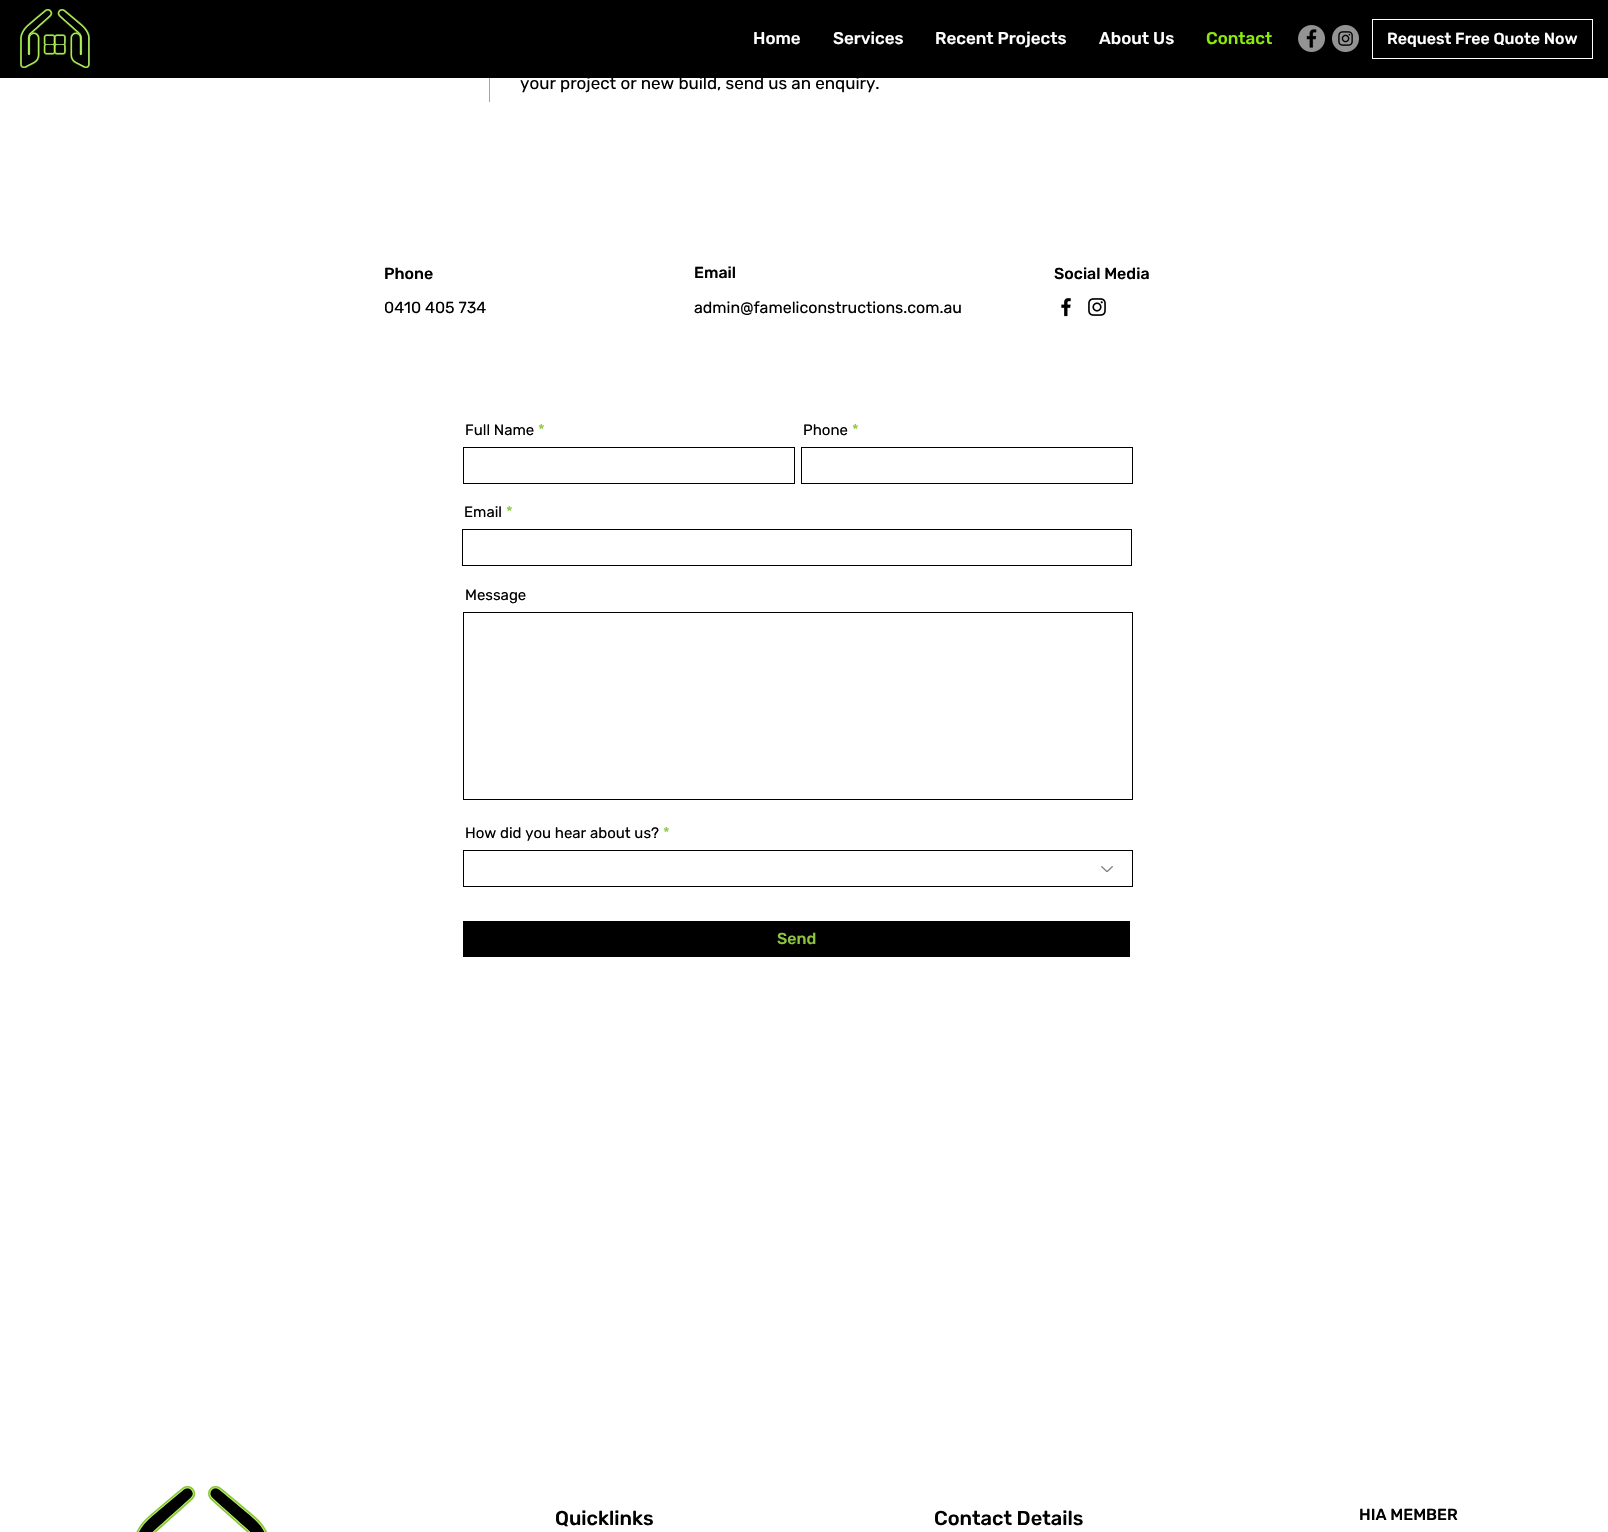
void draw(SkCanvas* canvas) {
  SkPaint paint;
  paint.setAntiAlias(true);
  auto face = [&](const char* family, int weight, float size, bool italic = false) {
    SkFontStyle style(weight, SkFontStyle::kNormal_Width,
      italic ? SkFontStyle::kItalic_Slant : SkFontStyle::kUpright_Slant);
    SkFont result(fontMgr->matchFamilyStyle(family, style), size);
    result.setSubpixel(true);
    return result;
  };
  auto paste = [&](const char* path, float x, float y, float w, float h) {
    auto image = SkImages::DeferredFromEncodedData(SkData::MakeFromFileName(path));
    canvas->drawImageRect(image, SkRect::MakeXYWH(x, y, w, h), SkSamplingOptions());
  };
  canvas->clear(0xffffffff);
  paint.setColor(0xff000000);
  canvas->drawRect(SkRect::MakeXYWH(0, 0, 1608, 78), paint);
  paste("img/1.png", 20, 9, 70, 59);
  paste("img/2.png", 1298, 25, 27, 27);
  paste("img/3.png", 1332, 25, 27, 27);
  paint.setStroke(true);
  paint.setStrokeWidth(1);
  paint.setColor(0xffffffff);
  canvas->drawRect(SkRect::MakeXYWH(1372.5f, 19.5f, 220, 39), paint);
  paint.setStroke(false);
  paint.setColor(0xff8cc63f);
  canvas->drawRect(SkRect::MakeXYWH(489, 78, 1, 24), paint);
  paste("img/4.png", 1061, 297, 10, 20);
  paste("img/5.png", 1088, 298, 18, 18);
  paint.setStroke(true);
  paint.setColor(0xff000000);
  canvas->drawRect(SkRect::MakeXYWH(463.5f, 447.5f, 331, 36), paint);
  canvas->drawRect(SkRect::MakeXYWH(801.5f, 447.5f, 331, 36), paint);
  canvas->drawRect(SkRect::MakeXYWH(462.5f, 529.5f, 669, 36), paint);
  canvas->drawRect(SkRect::MakeXYWH(463.5f, 612.5f, 669, 187), paint);
  canvas->drawRect(SkRect::MakeXYWH(463.5f, 850.5f, 669, 36), paint);
  paste("img/6.png", 1101, 866, 12, 6);
  paint.setStroke(false);
  canvas->drawRect(SkRect::MakeXYWH(463, 921, 667, 36), paint);
  paste("img/7.png", 136, 1486, 132, 46);
  auto f0 = face("Rubik", 500, 17);
  paint.setColor(0xffffffff);
  {
    const struct { const char* s; float x, y; } items[] = {
      {"Home", 753, 44},
      {"Services", 833, 44},
      {"Recent Projects", 935, 44},
      {"About Us", 1099, 44},
    };
    for (auto [s, x, y] : items) {
      canvas->drawString(s, x, y, f0, paint);
    }
  }
  paint.setColor(0xff8beb0b);
  canvas->drawString("Contact", 1206, 44, f0, paint);
  auto f1 = face("Rubik", 500, 16);
  paint.setColor(0xffffffff);
  canvas->drawString("Request Free Quote Now", 1387, 44, f1, paint);
  auto f2 = face("Rubik", 400, 17);
  paint.setColor(0xff000000);
  canvas->drawString("your project or new build, send us an enquiry.", 520, 89, f2, paint);
  {
    const struct { const char* s; float x, y; } items[] = {
      {"Phone", 384, 279},
      {"Email", 694, 278},
      {"Social Media", 1054, 279},
    };
    for (auto [s, x, y] : items) {
      canvas->drawString(s, x, y, f1, paint);
    }
  }
  auto f3 = face("Rubik", 400, 16);
  canvas->drawString("0410 405 734", 384, 313, f3, paint);
  canvas->drawString("admin@fameliconstructions.com.au", 694, 313, f3, paint);
  auto f4 = face("Rubik", 400, 15);
  canvas->drawString("Full Name", 465, 435, f4, paint);
  paint.setColor(0xff8cc63f);
  canvas->drawString("*", 538, 435, f4, paint);
  paint.setColor(0xff000000);
  canvas->drawString("Phone", 803, 435, f4, paint);
  paint.setColor(0xff8cc63f);
  canvas->drawString("*", 852, 435, f4, paint);
  paint.setColor(0xff000000);
  canvas->drawString("Email", 464, 517, f4, paint);
  paint.setColor(0xff8cc63f);
  canvas->drawString("*", 506, 517, f4, paint);
  paint.setColor(0xff000000);
  canvas->drawString("Message", 465, 600, f4, paint);
  canvas->drawString("How did you hear about us?", 465, 838, f4, paint);
  paint.setColor(0xff8cc63f);
  canvas->drawString("*", 663, 838, f4, paint);
  canvas->drawString("Send", 777, 944, f1, paint);
  auto f5 = face("Rubik", 500, 20);
  paint.setColor(0xff000000);
  canvas->drawString("Quicklinks", 555, 1525, f5, paint);
  canvas->drawString("Contact Details", 934, 1525, f5, paint);
  canvas->drawString("HIA MEMBER", 1359, 1520, f1, paint);
}
